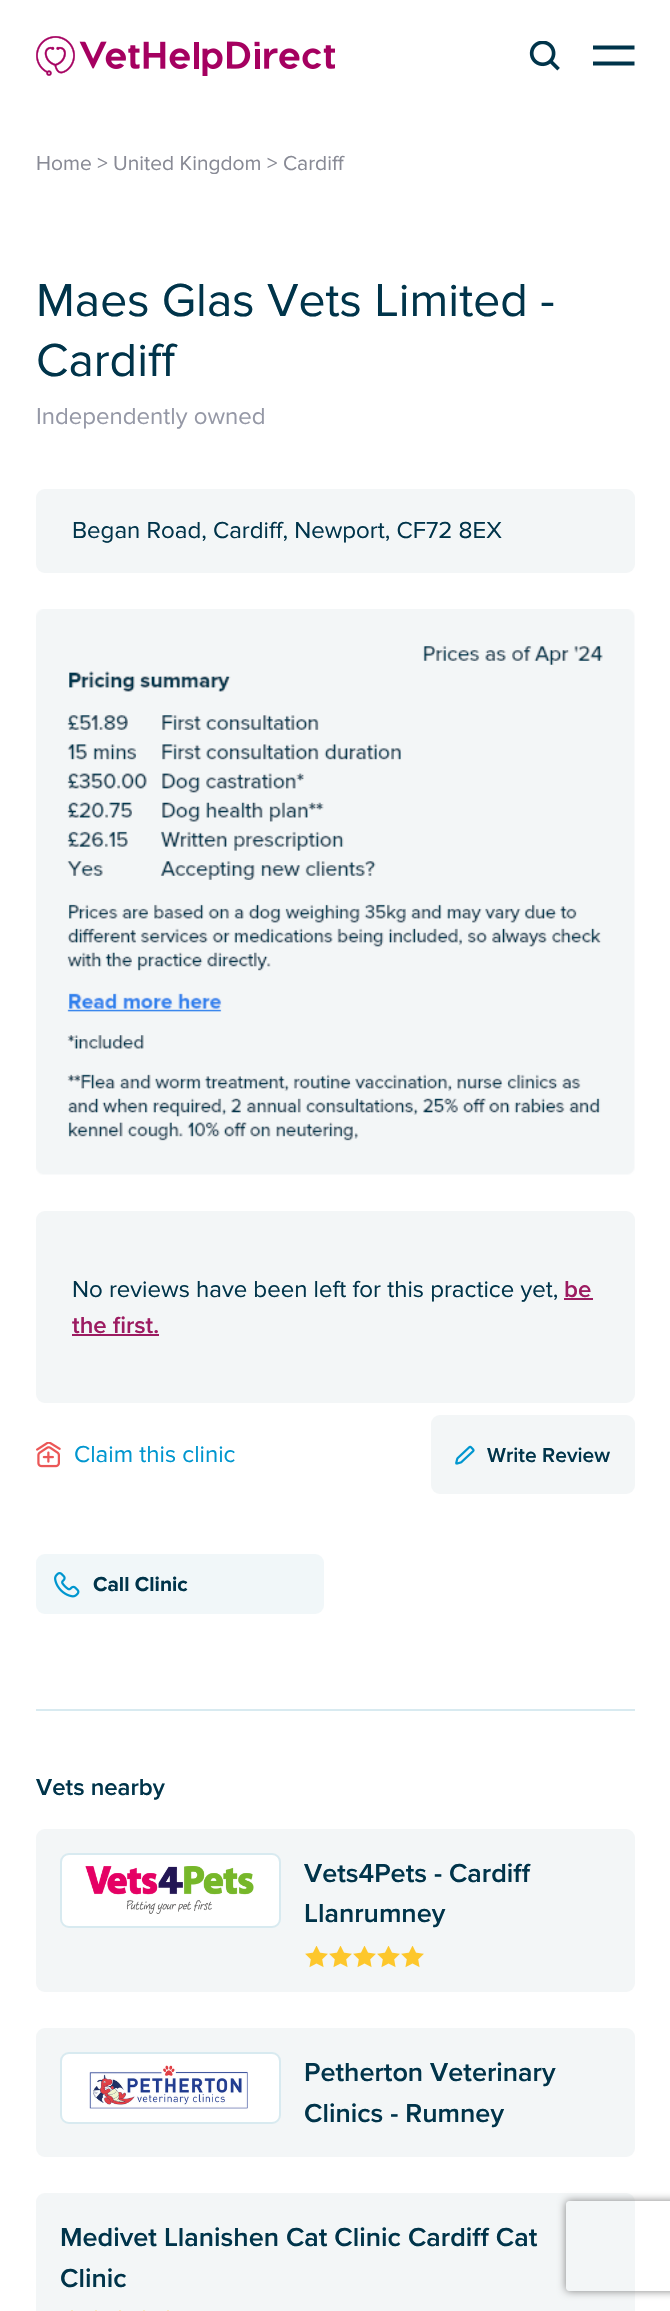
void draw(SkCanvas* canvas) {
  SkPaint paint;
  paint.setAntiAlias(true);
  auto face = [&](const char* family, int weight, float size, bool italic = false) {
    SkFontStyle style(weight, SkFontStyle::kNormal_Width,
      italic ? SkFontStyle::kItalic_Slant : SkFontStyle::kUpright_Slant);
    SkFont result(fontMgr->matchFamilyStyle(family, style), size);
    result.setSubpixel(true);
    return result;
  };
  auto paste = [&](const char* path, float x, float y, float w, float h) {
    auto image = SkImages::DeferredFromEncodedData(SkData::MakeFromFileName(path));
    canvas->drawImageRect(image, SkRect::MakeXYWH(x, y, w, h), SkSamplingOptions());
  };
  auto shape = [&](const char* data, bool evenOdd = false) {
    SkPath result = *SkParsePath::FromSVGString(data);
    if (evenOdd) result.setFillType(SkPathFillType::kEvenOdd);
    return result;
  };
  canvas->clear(0xffffffff);
  paste("img/1.png", 36, 36, 299, 40);
  paste("img/2.png", 529, 41, 31, 30);
  canvas->save();
  canvas->clipRect(SkRect::MakeXYWH(593, 41, 42, 30));
  paint.setStroke(true);
  paint.setStrokeWidth(4);
  paint.setColor(0xff00344a);
  canvas->drawPath(shape("M592.5 47.5H634.5M592.5 63.5H634.5"), paint);
  canvas->restore();
  paint.setStroke(false);
  paint.setColor(0xfff3f6f7);
  canvas->drawRoundRect(SkRect::MakeXYWH(36, 489, 599, 84), 9, 9, paint);
  paste("img/3.png", 36, 609, 599, 566);
  canvas->drawRoundRect(SkRect::MakeXYWH(36, 1211, 599, 192), 9, 9, paint);
  paint.setColor(0xff9c1b61);
  canvas->drawRect(SkRect::MakeXYWH(564, 1298, 29, 2), paint);
  canvas->drawRect(SkRect::MakeXYWH(72, 1334, 87, 2), paint);
  paste("img/4.png", 36, 1442, 25, 26);
  paint.setColor(0xfff3f6f7);
  canvas->drawRoundRect(SkRect::MakeXYWH(431, 1415, 204, 79), 9, 9, paint);
  paste("img/5.png", 455, 1445, 20, 20);
  paint.setColor(0xfff1f7f9);
  canvas->drawRoundRect(SkRect::MakeXYWH(36, 1554, 288, 60), 9, 9, paint);
  paste("img/6.png", 54, 1572, 26, 26);
  paint.setColor(0xffd8eaf0);
  canvas->drawRect(SkRect::MakeXYWH(36, 1709, 599, 2), paint);
  paint.setColor(0xfff3f6f7);
  canvas->drawRoundRect(SkRect::MakeXYWH(36, 1829, 599, 163), 9, 9, paint);
  paint.setColor(0xffffffff);
  canvas->drawRoundRect(SkRect::MakeXYWH(61, 1854, 219, 73), 8, 8, paint);
  paint.setStroke(true);
  paint.setStrokeWidth(2);
  paint.setColor(0xffd8eaf0);
  canvas->drawRoundRect(SkRect::MakeXYWH(61, 1854, 219, 73), 8, 8, paint);
  paste("img/7.png", 85, 1866, 169, 48);
  paste("img/8.png", 305, 1946, 23, 22);
  paste("img/8.png", 329, 1946, 23, 22);
  paste("img/8.png", 353, 1946, 23, 22);
  paste("img/8.png", 377, 1946, 23, 22);
  paste("img/8.png", 401, 1946, 23, 22);
  paint.setStroke(false);
  paint.setColor(0xfff3f6f7);
  canvas->drawRoundRect(SkRect::MakeXYWH(36, 2028, 599, 129), 9, 9, paint);
  paint.setColor(0xffffffff);
  canvas->drawRoundRect(SkRect::MakeXYWH(61, 2053, 219, 70), 8, 8, paint);
  paint.setStroke(true);
  paint.setColor(0xffd8eaf0);
  canvas->drawRoundRect(SkRect::MakeXYWH(61, 2053, 219, 70), 8, 8, paint);
  paste("img/9.png", 89, 2065, 159, 44);
  paint.setStroke(false);
  paint.setColor(0xfff3f6f7);
  canvas->drawRoundRect(SkRect::MakeXYWH(36, 2193, 599, 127), 9, 9, paint);
  {
    const struct { float x, y, w, h; SkColor color; } items[] = {
      {71, 2310, 2, 1, 0xfff6eac4},
      {95, 2310, 2, 1, 0xfff6eac4},
      {119, 2310, 2, 1, 0xfff6eac4},
      {143, 2310, 2, 1, 0xfff6eac4},
      {167, 2310, 2, 1, 0xfff6eac4},
    };
    for (auto [x, y, w, h, color] : items) {
      paint.setColor(color);
      canvas->drawRect(SkRect::MakeXYWH(x, y, w, h), paint);
    }
  }
  canvas->save();
  canvas->clipPath(shape("M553 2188H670V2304H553ZM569 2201H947C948.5 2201 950 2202.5 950 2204V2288C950 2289.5 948.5 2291 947 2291H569C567.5 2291 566 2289.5 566 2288V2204C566 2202.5 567.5 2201 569 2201Z", true), true);
  paint.setColor(0xff808080);
  paint.setMaskFilter(SkMaskFilter::MakeBlur(kNormal_SkBlurStyle, 4));
  canvas->drawRoundRect(SkRect::MakeXYWH(566, 2201, 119, 90), 3, 3, paint);
  paint.setMaskFilter(nullptr);
  canvas->restore();
  auto f0 = face("Proxima Nova", 400, 21);
  paint.setColor(0xff888a95);
  canvas->drawString("Home > United Kingdom > Cardiff", 36, 170, f0, paint);
  auto f1 = face("Proxima Nova", 400, 48);
  paint.setColor(0xff00344a);
  canvas->drawString("Maes Glas Vets Limited -", 36, 316, f1, paint);
  canvas->drawString("Cardiff", 36, 376, f1, paint);
  auto f2 = face("Proxima Nova", 400, 24);
  paint.setColor(0xff9598a6);
  canvas->drawString("Independently owned", 36, 424, f2, paint);
  paint.setColor(0xff00344a);
  canvas->drawString("Began Road, Cardiff, Newport, CF72 8EX", 72, 538, f2, paint);
  canvas->drawString("No reviews have been left for this practice yet,", 72, 1297, f2, paint);
  auto f3 = face("Proxima Nova", 600, 24);
  paint.setColor(0xff9c1b61);
  canvas->drawString("be", 564, 1297, f3, paint);
  canvas->drawString("the first.", 72, 1333, f3, paint);
  paint.setColor(0xff0096cf);
  canvas->drawString("Claim this clinic", 74, 1462, f2, paint);
  auto f4 = face("Proxima Nova", 600, 21);
  paint.setColor(0xff00344a);
  canvas->drawString("Write Review", 487, 1462, f4, paint);
  auto f5 = face("Proxima Nova", 700, 21);
  canvas->drawString("Call Clinic", 93, 1591, f5, paint);
  canvas->drawString("Vets nearby", 36, 1795, f3, paint);
  auto f6 = face("Proxima Nova", 600, 27);
  {
    const struct { const char* s; float x, y; } items[] = {
      {"Vets4Pets - Cardiff", 304, 1882},
      {"Llanrumney", 304, 1922},
      {"Petherton Veterinary", 304, 2081},
      {"Clinics - Rumney", 304, 2122},
      {"Medivet Llanishen Cat Clinic Cardiff Cat", 60, 2246},
      {"Clinic", 60, 2287},
    };
    for (auto [s, x, y] : items) {
      canvas->drawString(s, x, y, f6, paint);
    }
  }
}
